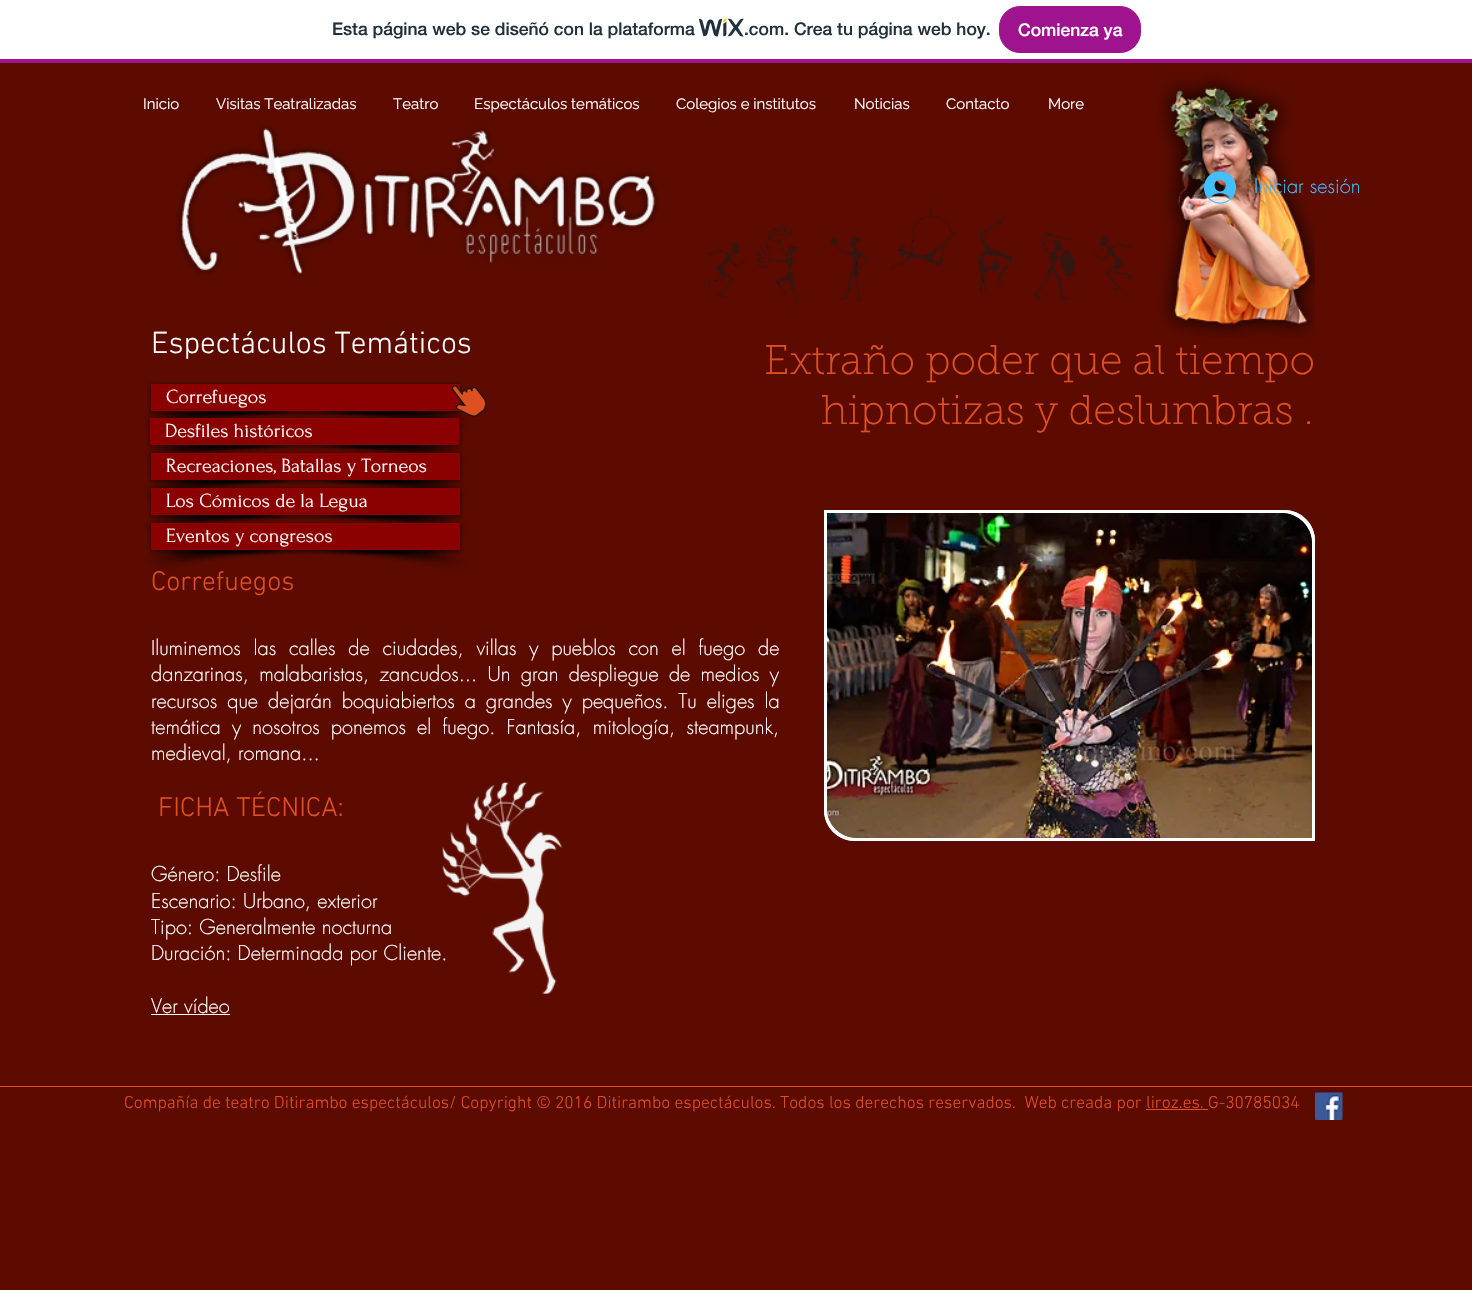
void draw(SkCanvas* canvas) {
  SkPaint paint;
  paint.setAntiAlias(true);
  auto face = [&](const char* family, int weight, float size, bool italic = false) {
    SkFontStyle style(weight, SkFontStyle::kNormal_Width,
      italic ? SkFontStyle::kItalic_Slant : SkFontStyle::kUpright_Slant);
    SkFont result(fontMgr->matchFamilyStyle(family, style), size);
    result.setSubpixel(true);
    return result;
  };
  auto writeSpaced = [&](const char* s, float x, float y, const SkFont& font, const SkPaint& ink, float letter, float word) {
    std::vector<SkGlyphID> glyphs(font.countText(s, strlen(s), SkTextEncoding::kUTF8));
    std::vector<float> xs(glyphs.size());
    font.textToGlyphs(s, strlen(s), SkTextEncoding::kUTF8, glyphs);
    font.getXPos(glyphs, xs, x);
    float extra = 0;
    for (size_t i = 0; i < glyphs.size(); i++) {
      xs[i] += extra;
      extra += letter + word * (glyphs[i] == font.unicharToGlyph(' '));
    }
    canvas->drawTextBlob(SkTextBlob::MakeFromPosHGlyphs(glyphs, xs, y, font), 0, 0, ink);
  };
  auto paste = [&](const char* path, float x, float y, float w, float h) {
    auto image = SkImages::DeferredFromEncodedData(SkData::MakeFromFileName(path));
    canvas->drawImageRect(image, SkRect::MakeXYWH(x, y, w, h), SkSamplingOptions());
  };
  auto shape = [&](const char* data, bool evenOdd = false) {
    SkPath result = *SkParsePath::FromSVGString(data);
    if (evenOdd) result.setFillType(SkPathFillType::kEvenOdd);
    return result;
  };
  canvas->clear(0xffffffff);
  paint.setColor(0xffa0138e);
  canvas->drawRect(SkRect::MakeXYWH(0, 59, 1472, 4), paint);
  paste("img/1.png", 699, 18, 45, 19);
  canvas->drawRoundRect(SkRect::MakeXYWH(999.5f, 6.5f, 141, 46), 20.5f, 20.5f, paint);
  paint.setStroke(true);
  paint.setStrokeWidth(1);
  canvas->drawRoundRect(SkRect::MakeXYWH(999.5f, 6.5f, 141, 46), 20.5f, 20.5f, paint);
  paint.setStroke(false);
  paint.setColor(0xff5d0b00);
  canvas->drawRect(SkRect::MakeXYWH(0, 63, 1472, 1227), paint);
  paste("img/2.png", 1157, 72, 158, 266);
  paste("img/3.png", 176, 125, 484, 152);
  paste("img/4.png", 707, 205, 425, 101);
  paste("img/5.png", 1204, 171, 32, 33);
  paste("img/6.png", 145, 411, 170, 20);
  paste("img/7.png", 298, 411, 168, 20);
  paint.setColor(0x99000000);
  paint.setMaskFilter(SkMaskFilter::MakeBlur(kNormal_SkBlurStyle, 2.5f));
  canvas->drawRect(SkRect::MakeXYWH(151, 385, 309, 28), paint);
  paint.setMaskFilter(nullptr);
  paint.setColor(0xff8b0000);
  canvas->drawRect(SkRect::MakeXYWH(151, 384, 309, 27), paint);
  paste("img/8.png", 451, 385, 36, 32);
  paste("img/9.png", 144, 445, 173, 20);
  paste("img/10.png", 296, 445, 169, 20);
  paint.setColor(0x99000000);
  paint.setMaskFilter(SkMaskFilter::MakeBlur(kNormal_SkBlurStyle, 2.5f));
  canvas->drawRect(SkRect::MakeXYWH(150, 419, 309, 27), paint);
  paint.setMaskFilter(nullptr);
  paint.setColor(0xff8b0000);
  canvas->drawRect(SkRect::MakeXYWH(150, 418, 309, 27), paint);
  paste("img/11.png", 145, 480, 173, 20);
  paste("img/12.png", 297, 480, 169, 20);
  paint.setColor(0x99000000);
  paint.setMaskFilter(SkMaskFilter::MakeBlur(kNormal_SkBlurStyle, 2.5f));
  canvas->drawRect(SkRect::MakeXYWH(151, 454, 309, 27), paint);
  paint.setMaskFilter(nullptr);
  paint.setColor(0xff8b0000);
  canvas->drawRect(SkRect::MakeXYWH(151, 453, 309, 27), paint);
  paste("img/11.png", 145, 515, 173, 20);
  paste("img/12.png", 297, 515, 169, 20);
  paint.setColor(0x99000000);
  paint.setMaskFilter(SkMaskFilter::MakeBlur(kNormal_SkBlurStyle, 2.5f));
  canvas->drawRect(SkRect::MakeXYWH(151, 489, 309, 27), paint);
  paint.setMaskFilter(nullptr);
  paint.setColor(0xff8b0000);
  canvas->drawRect(SkRect::MakeXYWH(151, 488, 309, 27), paint);
  paste("img/11.png", 145, 550, 173, 20);
  paste("img/12.png", 297, 550, 169, 20);
  paint.setColor(0x99000000);
  paint.setMaskFilter(SkMaskFilter::MakeBlur(kNormal_SkBlurStyle, 2.5f));
  canvas->drawRect(SkRect::MakeXYWH(151, 524, 309, 27), paint);
  paint.setMaskFilter(nullptr);
  paint.setColor(0xff8b0000);
  canvas->drawRect(SkRect::MakeXYWH(151, 523, 309, 27), paint);
  paint.setColor(0xffffffff);
  canvas->drawPath(shape("M824 510H1284C1301 510 1315 524 1315 541V841H855C838 841 824 827 824 810Z"), paint);
  paste("img/13.png", 827, 513, 485, 325);
  paint.setStroke(true);
  paint.setStrokeWidth(3);
  canvas->drawPath(shape("M825.5 511.5H1284C1300.5 511.5 1313.5 524.5 1313.5 541V839.5H855C838.5 839.5 825.5 826.5 825.5 810Z"), paint);
  paint.setStroke(false);
  {
    const struct { float x, y, w, h; SkColor color; } items[] = {
      {151, 1014, 79, 1, 0xffffffff},
      {0, 1086, 1472, 1, 0xffde5021},
      {1146, 1109, 62, 1, 0xffde5021},
    };
    for (auto [x, y, w, h, color] : items) {
      paint.setColor(color);
      canvas->drawRect(SkRect::MakeXYWH(x, y, w, h), paint);
    }
  }
  paste("img/15.png", 1315, 1092, 28, 28);
  auto f0 = face("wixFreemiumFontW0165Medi", 500, 17.5f);
  paint.setColor(0xff20303c);
  canvas->drawString("Esta página web se diseñó con la plataforma", 332, 35, f0, paint);
  canvas->drawString(".com. Crea tu página web hoy.", 744, 35, f0, paint);
  paint.setColor(0xffffffff);
  canvas->drawString("Comienza ya", 1018, 36, f0, paint);
  auto f1 = face("Raleway", 400, 15);
  {
    const struct { const char* s; float x, y; } items[] = {
      {"Inicio", 143, 109},
      {"Visitas Teatralizadas", 216, 109},
      {"Teatro", 393, 109},
      {"Espectáculos temáticos", 474, 109},
      {"Colegios e institutos", 676, 109},
      {"Noticias", 854, 109},
      {"Contacto", 946, 109},
      {"More", 1048, 109},
    };
    for (auto [s, x, y] : items) {
      canvas->drawString(s, x, y, f1, paint);
    }
  }
  auto f2 = face("futura", 300, 20);
  paint.setColor(0xff41bfff);
  canvas->drawString("Iniciar sesión", 1254, 193, f2, paint);
  auto f3 = face("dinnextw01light", 300, 31.25f);
  paint.setColor(0xffffffff);
  canvas->drawString("Espectáculos Temáticos", 151, 353, f3, paint);
  auto f4 = face("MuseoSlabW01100", 100, 41.25f);
  paint.setColor(0xffde5021);
  canvas->drawString("Extraño poder que al tiempo", 764, 374, f4, paint);
  canvas->drawString("hipnotizas y deslumbras .", 821, 424, f4, paint);
  auto f5 = face("Forum", 400, 20);
  paint.setColor(0xffffffff);
  {
    const struct { const char* s; float x, y; } items[] = {
      {"Correfuegos", 166, 403},
      {"Desfiles históricos", 165, 437},
      {"Recreaciones, Batallas y Torneos", 166, 472},
      {"Los Cómicos de la Legua", 166, 507},
      {"Eventos y congresos", 166, 542},
    };
    for (auto [s, x, y] : items) {
      canvas->drawString(s, x, y, f5, paint);
    }
  }
  auto f6 = face("dinnextw01light", 300, 27.5f);
  paint.setColor(0xffde5021);
  canvas->drawString("Correfuegos", 151, 590, f6, paint);
  paint.setColor(0xffffffff);
  writeSpaced("Iluminemos las calles de ciudades, villas y pueblos con el fuego de", 151, 655, f2, paint, 0, 6.6f);
  writeSpaced("danzarinas, malabaristas, zancudos... Un gran despliegue de medios y", 151, 681, f2, paint, 0, 4);
  writeSpaced("recursos que dejarán boquiabiertos a grandes y pequeños. Tu eliges la", 151, 708, f2, paint, 0, 3.75f);
  writeSpaced("temática y nosotros ponemos el fuego. Fantasía, mitología, steampunk,", 151, 734, f2, paint, 0, 5);
  canvas->drawString("medieval, romana...", 151, 760, f2, paint);
  paint.setColor(0xffde5021);
  canvas->drawString("FICHA TÉCNICA:", 158, 816, f6, paint);
  paint.setColor(0xffffffff);
  {
    const struct { const char* s; float x, y; } items[] = {
      {"Género: Desfile", 151, 881},
      {"Escenario: Urbano, exterior", 151, 908},
      {"Tipo: Generalmente nocturna", 151, 934},
      {"Duración: Determinada por Cliente.", 151, 960},
      {"Ver vídeo", 151, 1013},
    };
    for (auto [s, x, y] : items) {
      canvas->drawString(s, x, y, f2, paint);
    }
  }
  paste("img/14.png", 442, 782, 121, 212);
  auto f7 = face("dinnextw01light", 300, 17.5f);
  paint.setColor(0xffde5021);
  canvas->drawString("Compañía de teatro Ditirambo espectáculos/ Copyright © 2016 Ditirambo espectáculos. Todos los derechos reservados.  Web creada por liroz.es. G-30785034", 124, 1108, f7, paint);
}
